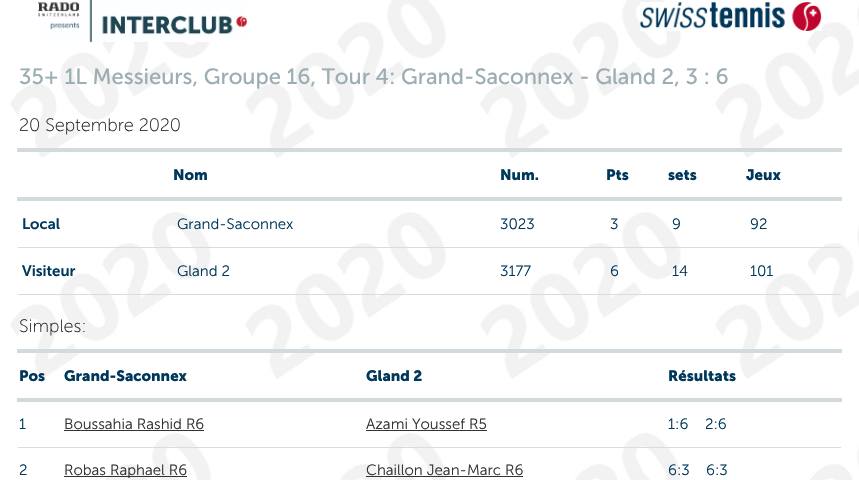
void draw(SkCanvas* canvas) {
  SkPaint paint;
  paint.setAntiAlias(true);
  auto face = [&](const char* family, int weight, float size, bool italic = false) {
    SkFontStyle style(weight, SkFontStyle::kNormal_Width,
      italic ? SkFontStyle::kItalic_Slant : SkFontStyle::kUpright_Slant);
    SkFont result(fontMgr->matchFamilyStyle(family, style), size);
    result.setSubpixel(true);
    return result;
  };
  auto paste = [&](const char* path, float x, float y, float w, float h) {
    auto image = SkImages::DeferredFromEncodedData(SkData::MakeFromFileName(path));
    canvas->drawImageRect(image, SkRect::MakeXYWH(x, y, w, h), SkSamplingOptions());
  };
  canvas->clear(0xffffffff);
  paste("img/1.png", 10, 0, 849, 480);
  paste("img/2.png", 38, 0, 209, 42);
  paste("img/3.png", 640, 2, 182, 29);
  {
    const struct { float x, y, w, h; SkColor color; } items[] = {
      {17, 148, 825, 4, 0xffd2dadd},
      {17, 197, 825, 4, 0xffd2dadd},
      {18, 247, 823, 1, 0xffd5dde0},
      {18, 294, 823, 1, 0xffd5dde0},
      {17, 349, 825, 4, 0xffd2dadd},
      {17, 398, 825, 4, 0xffd2dadd},
      {64, 430, 140, 1, 0xff333333},
      {366, 430, 121, 1, 0xff333333},
      {18, 447, 823, 1, 0xffd5dde0},
      {64, 476, 123, 1, 0xff333333},
      {366, 476, 157, 1, 0xff333333},
    };
    for (auto [x, y, w, h, color] : items) {
      paint.setColor(color);
      canvas->drawRect(SkRect::MakeXYWH(x, y, w, h), paint);
    }
  }
  auto f0 = face("Museo Sans", 400, 22);
  paint.setColor(0xff9cadb3);
  canvas->drawString("35+ 1L Messieurs, Groupe 16, Tour 4: Grand-Saconnex - Gland 2, 3 : 6", 19, 84, f0, paint);
  auto f1 = face("Museo Sans", 200, 18);
  paint.setColor(0xff222222);
  canvas->drawString("20 Septembre 2020", 19, 131, f1, paint);
  auto f2 = face("Museo Sans", 700, 15);
  paint.setColor(0xff00385b);
  {
    const struct { const char* s; float x, y; } items[] = {
      {"Nom", 173, 180},
      {"Num.", 500, 180},
      {"Pts", 606, 180},
      {"sets", 668, 180},
      {"Jeux", 746, 180},
    };
    for (auto [s, x, y] : items) {
      canvas->drawString(s, x, y, f2, paint);
    }
  }
  auto f3 = face("Museo Sans", 600, 15);
  canvas->drawString("Local", 22, 229, f3, paint);
  auto f4 = face("Museo Sans", 300, 15);
  {
    const struct { const char* s; float x, y; } items[] = {
      {"Grand-Saconnex", 177, 229},
      {"3023", 500, 229},
      {"3", 610, 229},
      {"9", 672, 229},
      {"92", 750, 229},
    };
    for (auto [s, x, y] : items) {
      canvas->drawString(s, x, y, f4, paint);
    }
  }
  canvas->drawString("Visiteur", 22, 276, f3, paint);
  {
    const struct { const char* s; float x, y; } items[] = {
      {"Gland 2", 177, 276},
      {"3177", 500, 276},
      {"6", 610, 276},
      {"14", 672, 276},
      {"101", 750, 276},
    };
    for (auto [s, x, y] : items) {
      canvas->drawString(s, x, y, f4, paint);
    }
  }
  paint.setColor(0xff222222);
  canvas->drawString("Simples:", 19, 332, f1, paint);
  paint.setColor(0xff00385b);
  {
    const struct { const char* s; float x, y; } items[] = {
      {"Pos", 19, 381},
      {"Grand-Saconnex", 64, 381},
      {"Gland 2", 366, 381},
      {"Résultats", 668, 381},
    };
    for (auto [s, x, y] : items) {
      canvas->drawString(s, x, y, f2, paint);
    }
  }
  canvas->drawString("1", 19, 429, f4, paint);
  paint.setColor(0xff333333);
  canvas->drawString("Boussahia Rashid R6", 64, 429, f4, paint);
  canvas->drawString("Azami Youssef R5", 366, 429, f4, paint);
  paint.setColor(0xff00385b);
  {
    const struct { const char* s; float x, y; } items[] = {
      {"1:6", 668, 429},
      {"2:6", 705, 429},
      {"2", 19, 475},
    };
    for (auto [s, x, y] : items) {
      canvas->drawString(s, x, y, f4, paint);
    }
  }
  paint.setColor(0xff333333);
  canvas->drawString("Robas Raphael R6", 64, 475, f4, paint);
  canvas->drawString("Chaillon Jean-Marc R6", 366, 475, f4, paint);
  paint.setColor(0xff00385b);
  canvas->drawString("6:3", 668, 475, f4, paint);
  canvas->drawString("6:3", 706, 475, f4, paint);
}
